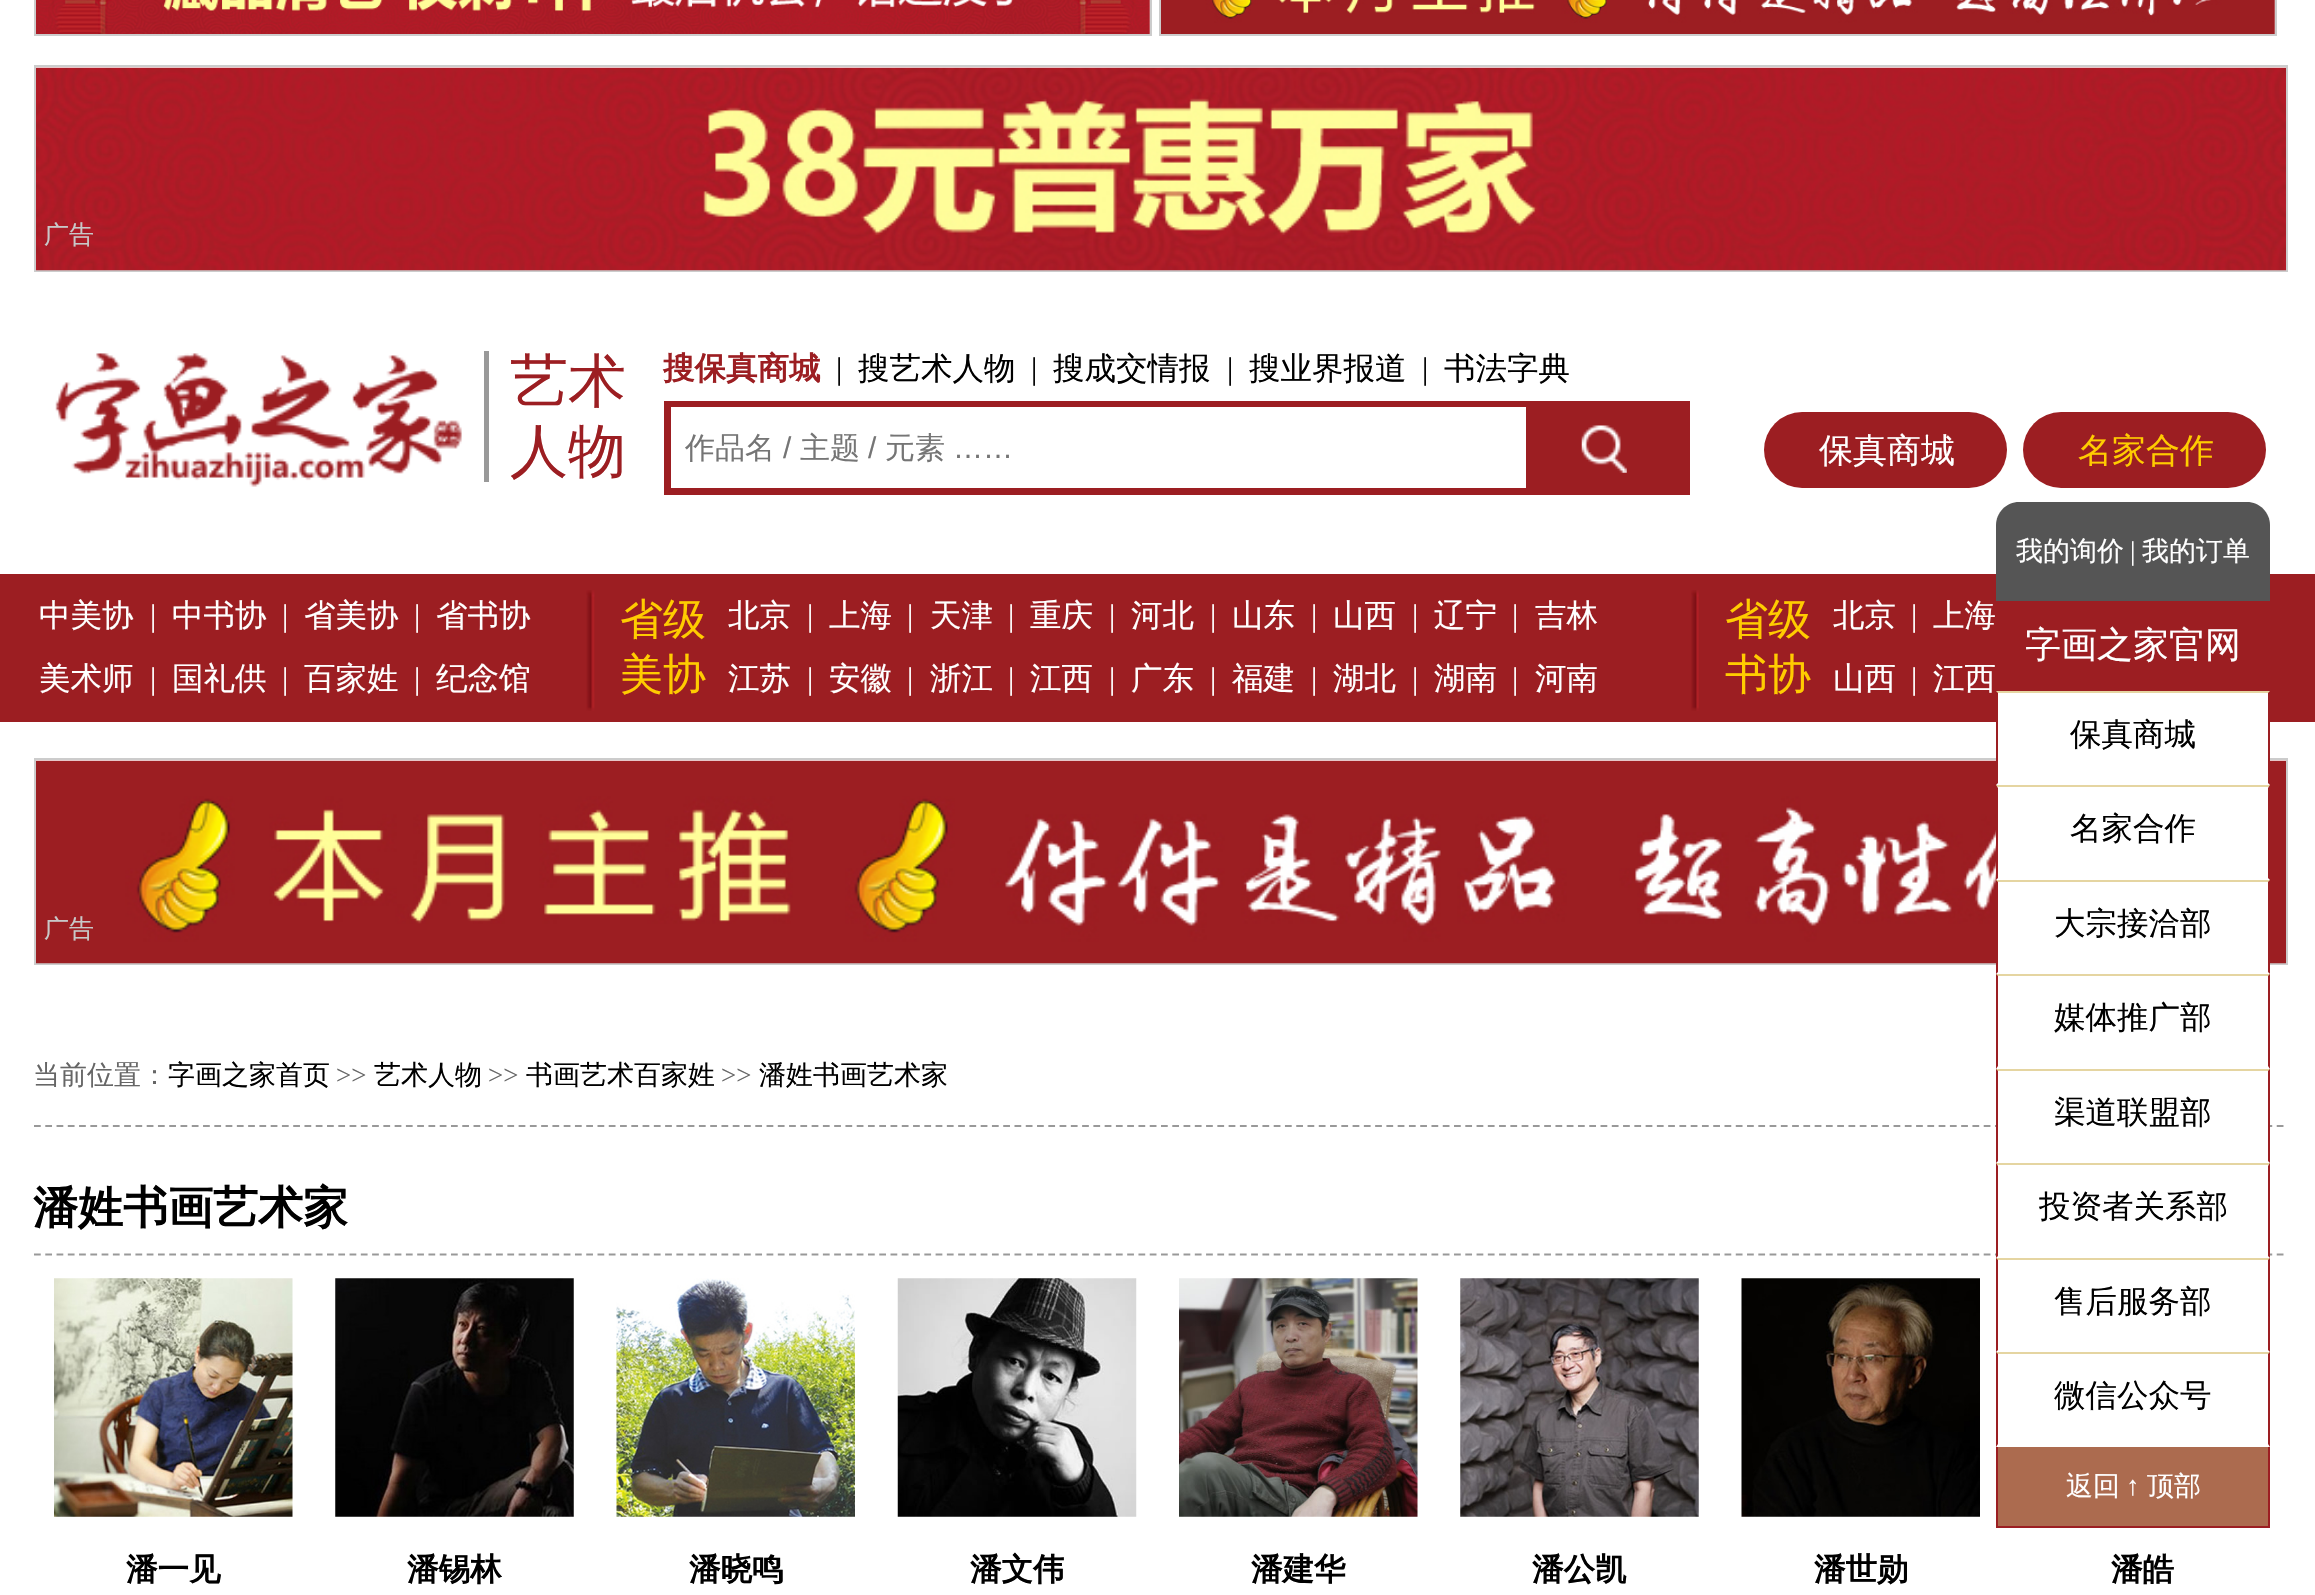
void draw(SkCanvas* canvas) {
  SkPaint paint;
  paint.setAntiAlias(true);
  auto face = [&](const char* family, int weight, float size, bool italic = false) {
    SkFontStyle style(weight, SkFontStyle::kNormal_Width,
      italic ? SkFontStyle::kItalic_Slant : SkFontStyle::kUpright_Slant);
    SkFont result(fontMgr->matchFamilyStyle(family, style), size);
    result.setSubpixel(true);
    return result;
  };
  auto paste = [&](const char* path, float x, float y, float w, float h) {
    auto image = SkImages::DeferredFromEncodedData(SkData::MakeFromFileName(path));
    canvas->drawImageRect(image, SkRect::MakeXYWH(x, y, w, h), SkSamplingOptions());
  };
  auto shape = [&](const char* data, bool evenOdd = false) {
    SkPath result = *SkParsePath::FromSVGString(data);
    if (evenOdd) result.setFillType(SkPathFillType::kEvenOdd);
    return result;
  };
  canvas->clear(0xffffffff);
  paint.setStroke(true);
  paint.setStrokeWidth(2);
  paint.setColor(0xffcccccc);
  canvas->drawRect(SkRect::MakeXYWH(35, -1, 1116, 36), paint);
  paste("img/1.png", 36, 0, 1114, 34);
  canvas->drawRect(SkRect::MakeXYWH(1160, -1, 1116, 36), paint);
  paste("img/2.png", 1161, 0, 1114, 34);
  canvas->drawRect(SkRect::MakeXYWH(35, 66, 2252, 205), paint);
  paste("img/3.png", 36, 67, 2250, 204);
  paste("img/4.png", 55, 353, 407, 134);
  paint.setStroke(false);
  paint.setColor(0xff999999);
  canvas->drawRect(SkRect::MakeXYWH(484, 351, 5, 131), paint);
  paint.setStroke(true);
  paint.setStrokeWidth(7);
  paint.setColor(0xff9c1e22);
  canvas->drawRect(SkRect::MakeXYWH(667.5f, 404.5f, 1019, 87), paint);
  paint.setStroke(false);
  paint.setColor(0xffffffff);
  canvas->drawRect(SkRect::MakeXYWH(671, 407, 855, 1), paint);
  paint.setColor(0xff9c1e22);
  canvas->drawRect(SkRect::MakeXYWH(1526, 408, 157, 80), paint);
  paste("img/5.png", 1581, 425, 46, 48);
  canvas->drawRoundRect(SkRect::MakeXYWH(1764, 412, 243, 76), 38, 38, paint);
  canvas->drawRoundRect(SkRect::MakeXYWH(2023, 412, 243, 76), 38, 38, paint);
  canvas->drawRect(SkRect::MakeXYWH(0, 574, 2315, 148), paint);
  paste("img/6.png", 586, 590, 9, 121);
  paste("img/7.png", 1691, 590, 8, 121);
  paint.setColor(0xff555555);
  canvas->drawPath(shape("M2019 502H2247C2259.5 502 2270 512.5 2270 525V601H1996V525C1996 512.5 2006.5 502 2019 502Z"), paint);
  paint.setStroke(true);
  paint.setStrokeWidth(2);
  paint.setColor(0xffcccccc);
  canvas->drawRect(SkRect::MakeXYWH(35, 759, 2252, 205), paint);
  paste("img/8.png", 36, 760, 2250, 204);
  paint.setStroke(false);
  paint.setColor(0xffffffff);
  canvas->drawRect(SkRect::MakeXYWH(1996, 693, 274, 92), paint);
  paint.setColor(0xffe5d5a1);
  canvas->drawRect(SkRect::MakeXYWH(1996, 691, 274, 2), paint);
  paint.setColor(0xff9c1e22);
  canvas->drawPath(shape("M2270 691V785L2268 783V693Z"), paint);
  canvas->drawPath(shape("M1996 785V691L1998 693V783Z"), paint);
  paint.setColor(0xffffffff);
  canvas->drawRect(SkRect::MakeXYWH(1996, 787, 274, 93), paint);
  paint.setColor(0xffe5d5a1);
  canvas->drawRect(SkRect::MakeXYWH(1996, 785, 274, 2), paint);
  paint.setColor(0xff9c1e22);
  canvas->drawPath(shape("M2270 785V880L2268 878V788Z"), paint);
  canvas->drawPath(shape("M1996 880V785L1998 788V878Z"), paint);
  paint.setColor(0xffffffff);
  canvas->drawRect(SkRect::MakeXYWH(1996, 882, 274, 83), paint);
  paint.setColor(0xffe5d5a1);
  canvas->drawRect(SkRect::MakeXYWH(1996, 880, 274, 2), paint);
  paint.setColor(0xff9c1e22);
  canvas->drawPath(shape("M2270 880V974L2268 972V882Z"), paint);
  canvas->drawPath(shape("M1996 974V880L1998 882V972Z"), paint);
  paint.setColor(0xffe5d5a1);
  canvas->drawRect(SkRect::MakeXYWH(1996, 974, 274, 2), paint);
  paint.setColor(0xff9c1e22);
  canvas->drawPath(shape("M2270 974V1069L2268 1066V976Z"), paint);
  canvas->drawPath(shape("M1996 1069V974L1998 976V1066Z"), paint);
  paint.setStroke(true);
  paint.setStrokeWidth(2.2f);
  paint.setColor(0xff999999);
  paint.setPathEffect(SkDashPathEffect::Make({{6.75f, 4.52f}}, 0));
  canvas->drawPath(shape("M34 1126H2284"), paint);
  paint.setPathEffect(nullptr);
  paint.setStroke(false);
  paint.setColor(0xffffffff);
  canvas->drawRect(SkRect::MakeXYWH(1996, 1124, 274, 4), paint);
  paint.setColor(0xffe5d5a1);
  canvas->drawRect(SkRect::MakeXYWH(1996, 1069, 274, 2), paint);
  paint.setColor(0xff9c1e22);
  canvas->drawPath(shape("M2270 1069V1163L2268 1161V1071Z"), paint);
  canvas->drawPath(shape("M1996 1163V1069L1998 1071V1161Z"), paint);
  paint.setStroke(true);
  paint.setColor(0xff999999);
  paint.setPathEffect(SkDashPathEffect::Make({{6.75f, 4.52f}}, 0));
  canvas->drawPath(shape("M34 1254.5H2284"), paint);
  paint.setPathEffect(nullptr);
  paint.setStroke(false);
  paint.setColor(0xffffffff);
  canvas->drawRect(SkRect::MakeXYWH(1996, 1253, 274, 3), paint);
  paint.setColor(0xffe5d5a1);
  canvas->drawRect(SkRect::MakeXYWH(1996, 1163, 274, 2), paint);
  paint.setColor(0xff9c1e22);
  canvas->drawPath(shape("M2270 1163V1258L2268 1256V1166Z"), paint);
  canvas->drawPath(shape("M1996 1258V1163L1998 1166V1256Z"), paint);
  paint.setColor(0xffe5d5a1);
  canvas->drawRect(SkRect::MakeXYWH(1996, 1258, 274, 2), paint);
  paint.setColor(0xff9c1e22);
  canvas->drawPath(shape("M2270 1258V1352L2268 1350V1260Z"), paint);
  canvas->drawPath(shape("M1996 1352V1258L1998 1260V1350Z"), paint);
  paint.setColor(0xffe5d5a1);
  canvas->drawRect(SkRect::MakeXYWH(1996, 1352, 274, 2), paint);
  paint.setColor(0xff9c1e22);
  canvas->drawPath(shape("M2270 1352V1447L2268 1444V1354Z"), paint);
  canvas->drawPath(shape("M1996 1447V1352L1998 1354V1444Z"), paint);
  {
    const struct { float x, y, w, h; SkColor color; } items[] = {
      {1998, 1447, 270, 79, 0xffac6b4f},
      {2268, 1447, 2, 81, 0xff9c1e22},
      {1996, 1526, 274, 2, 0xff9c1e22},
      {1996, 1447, 2, 81, 0xff9c1e22},
    };
    for (auto [x, y, w, h, color] : items) {
      paint.setColor(color);
      canvas->drawRect(SkRect::MakeXYWH(x, y, w, h), paint);
    }
  }
  paste("img/9.png", 54, 1278, 239, 239);
  paste("img/10.png", 335, 1278, 239, 239);
  paste("img/11.png", 616, 1278, 239, 239);
  paste("img/12.png", 897, 1278, 240, 239);
  paste("img/13.png", 1179, 1278, 239, 239);
  paste("img/14.png", 1460, 1278, 239, 239);
  paste("img/15.png", 1741, 1278, 239, 239);
  auto f0 = face("WenQuanYi Zen Hei", 500, 25);
  paint.setColor(0xffc8c8c8);
  canvas->drawString("广告", 44, 243, f0, paint);
  auto f1 = face("WenQuanYi Zen Hei", 500, 58);
  paint.setColor(0xff9c1e22);
  canvas->drawString("艺术", 510, 401, f1, paint);
  canvas->drawString("人物", 510, 471, f1, paint);
  auto f2 = face("WenQuanYi Zen Hei", 700, 31.5f);
  canvas->drawString("搜保真商城", 663, 379, f2, paint);
  auto f3 = face("Liberation Serif", 400, 31.5f);
  paint.setColor(0xff000000);
  canvas->drawString("|", 836, 379, f3, paint);
  auto f4 = face("WenQuanYi Zen Hei", 500, 31.5f);
  canvas->drawString("搜艺术人物", 858, 379, f4, paint);
  canvas->drawString("|", 1031, 379, f3, paint);
  canvas->drawString("搜成交情报", 1053, 379, f4, paint);
  canvas->drawString("|", 1227, 379, f3, paint);
  canvas->drawString("搜业界报道", 1249, 379, f4, paint);
  canvas->drawString("|", 1422, 379, f3, paint);
  canvas->drawString("书法字典", 1444, 379, f4, paint);
  auto f5 = face("WenQuanYi Zen Hei", 500, 30);
  paint.setColor(0xff757575);
  canvas->drawString("作品名", 685, 458, f5, paint);
  auto f6 = face("Liberation Sans", 400, 30);
  canvas->drawString("/", 783, 458, f6, paint);
  canvas->drawString("主题", 800, 458, f5, paint);
  canvas->drawString("/", 868, 458, f6, paint);
  canvas->drawString("元素", 885, 458, f5, paint);
  canvas->drawString("……", 953, 458, f6, paint);
  auto f7 = face("WenQuanYi Zen Hei", 500, 34);
  paint.setColor(0xffffffff);
  canvas->drawString("保真商城", 1819, 462, f7, paint);
  paint.setColor(0xffffcc00);
  canvas->drawString("名家合作", 2078, 462, f7, paint);
  paint.setColor(0xffffffff);
  canvas->drawString("中美协", 39, 626, f4, paint);
  canvas->drawString("|", 150, 626, f3, paint);
  canvas->drawString("中书协", 172, 626, f4, paint);
  canvas->drawString("|", 282, 626, f3, paint);
  canvas->drawString("省美协", 304, 626, f4, paint);
  canvas->drawString("|", 414, 626, f3, paint);
  canvas->drawString("省书协", 436, 626, f4, paint);
  canvas->drawString("美术师", 39, 689, f4, paint);
  canvas->drawString("|", 150, 689, f3, paint);
  canvas->drawString("国礼供", 172, 689, f4, paint);
  canvas->drawString("|", 282, 689, f3, paint);
  canvas->drawString("百家姓", 304, 689, f4, paint);
  canvas->drawString("|", 414, 689, f3, paint);
  canvas->drawString("纪念馆", 436, 689, f4, paint);
  auto f8 = face("WenQuanYi Zen Hei", 500, 43);
  paint.setColor(0xffffcc00);
  canvas->drawString("省级", 620, 634, f8, paint);
  canvas->drawString("美协", 620, 689, f8, paint);
  paint.setColor(0xffffffff);
  canvas->drawString("北京", 728, 626, f4, paint);
  canvas->drawString("|", 807, 626, f3, paint);
  canvas->drawString("上海", 829, 626, f4, paint);
  canvas->drawString("|", 907, 626, f3, paint);
  canvas->drawString("天津", 930, 626, f4, paint);
  canvas->drawString("|", 1008, 626, f3, paint);
  canvas->drawString("重庆", 1030, 626, f4, paint);
  canvas->drawString("|", 1109, 626, f3, paint);
  canvas->drawString("河北", 1131, 626, f4, paint);
  canvas->drawString("|", 1210, 626, f3, paint);
  canvas->drawString("山东", 1232, 626, f4, paint);
  canvas->drawString("|", 1311, 626, f3, paint);
  canvas->drawString("山西", 1333, 626, f4, paint);
  canvas->drawString("|", 1412, 626, f3, paint);
  canvas->drawString("辽宁", 1434, 626, f4, paint);
  canvas->drawString("|", 1512, 626, f3, paint);
  canvas->drawString("吉林", 1535, 626, f4, paint);
  canvas->drawString("江苏", 728, 689, f4, paint);
  canvas->drawString("|", 807, 689, f3, paint);
  canvas->drawString("安徽", 829, 689, f4, paint);
  canvas->drawString("|", 907, 689, f3, paint);
  canvas->drawString("浙江", 930, 689, f4, paint);
  canvas->drawString("|", 1008, 689, f3, paint);
  canvas->drawString("江西", 1030, 689, f4, paint);
  canvas->drawString("|", 1109, 689, f3, paint);
  canvas->drawString("广东", 1131, 689, f4, paint);
  canvas->drawString("|", 1210, 689, f3, paint);
  canvas->drawString("福建", 1232, 689, f4, paint);
  canvas->drawString("|", 1311, 689, f3, paint);
  canvas->drawString("湖北", 1333, 689, f4, paint);
  canvas->drawString("|", 1412, 689, f3, paint);
  canvas->drawString("湖南", 1434, 689, f4, paint);
  canvas->drawString("|", 1512, 689, f3, paint);
  canvas->drawString("河南", 1535, 689, f4, paint);
  paint.setColor(0xffffcc00);
  canvas->drawString("省级", 1725, 634, f8, paint);
  canvas->drawString("书协", 1725, 689, f8, paint);
  paint.setColor(0xffffffff);
  canvas->drawString("北京", 1833, 626, f4, paint);
  canvas->drawString("|", 1911, 626, f3, paint);
  canvas->drawString("上海", 1933, 626, f4, paint);
  canvas->drawString("山西", 1833, 689, f4, paint);
  canvas->drawString("|", 1911, 689, f3, paint);
  canvas->drawString("江西", 1933, 689, f4, paint);
  auto f9 = face("WenQuanYi Zen Hei", 500, 27);
  canvas->drawString("我的询价", 2016, 560, f9, paint);
  auto f10 = face("Liberation Serif", 400, 27);
  canvas->drawString("|", 2130, 560, f10, paint);
  canvas->drawString("我的订单", 2142, 560, f9, paint);
  auto f11 = face("WenQuanYi Zen Hei", 500, 36);
  canvas->drawString("字画之家官网", 2025, 657, f11, paint);
  paint.setColor(0xff000000);
  {
    const struct { const char* s; float x, y; } items[] = {
      {"保真商城", 2070, 745},
      {"名家合作", 2070, 839},
      {"大宗接洽部", 2054, 934},
      {"媒体推广部", 2054, 1028},
      {"渠道联盟部", 2054, 1123},
      {"投资者关系部", 2039, 1217},
      {"售后服务部", 2054, 1312},
      {"微信公众号", 2054, 1406},
    };
    for (auto [s, x, y] : items) {
      canvas->drawString(s, x, y, f4, paint);
    }
  }
  paint.setColor(0xffffffff);
  canvas->drawString("返回", 2066, 1495, f9, paint);
  canvas->drawString("↑", 2126, 1495, f10, paint);
  canvas->drawString("顶部", 2147, 1495, f9, paint);
  paint.setColor(0xffc8c8c8);
  canvas->drawString("广告", 44, 937, f0, paint);
  paint.setColor(0xff666666);
  canvas->drawString("当前位置：", 33, 1084, f9, paint);
  paint.setColor(0xff000000);
  canvas->drawString("字画之家首页", 168, 1084, f9, paint);
  paint.setColor(0xff666666);
  canvas->drawString(">>", 336, 1084, f10, paint);
  paint.setColor(0xff000000);
  canvas->drawString("艺术人物", 374, 1084, f9, paint);
  paint.setColor(0xff666666);
  canvas->drawString(">>", 488, 1084, f10, paint);
  paint.setColor(0xff000000);
  canvas->drawString("书画艺术百家姓", 526, 1084, f9, paint);
  paint.setColor(0xff666666);
  canvas->drawString(">>", 721, 1084, f10, paint);
  paint.setColor(0xff000000);
  canvas->drawString("潘姓书画艺术家", 759, 1084, f9, paint);
  auto f12 = face("WenQuanYi Zen Hei", 700, 45);
  canvas->drawString("潘姓书画艺术家", 33, 1223, f12, paint);
  {
    const struct { const char* s; float x, y; } items[] = {
      {"潘一见", 126, 1580},
      {"潘锡林", 407, 1580},
      {"潘晓鸣", 689, 1580},
      {"潘文伟", 970, 1580},
      {"潘建华", 1251, 1580},
      {"潘公凯", 1532, 1580},
      {"潘世勋", 1814, 1580},
      {"潘皓", 2111, 1580},
    };
    for (auto [s, x, y] : items) {
      canvas->drawString(s, x, y, f2, paint);
    }
  }
}
